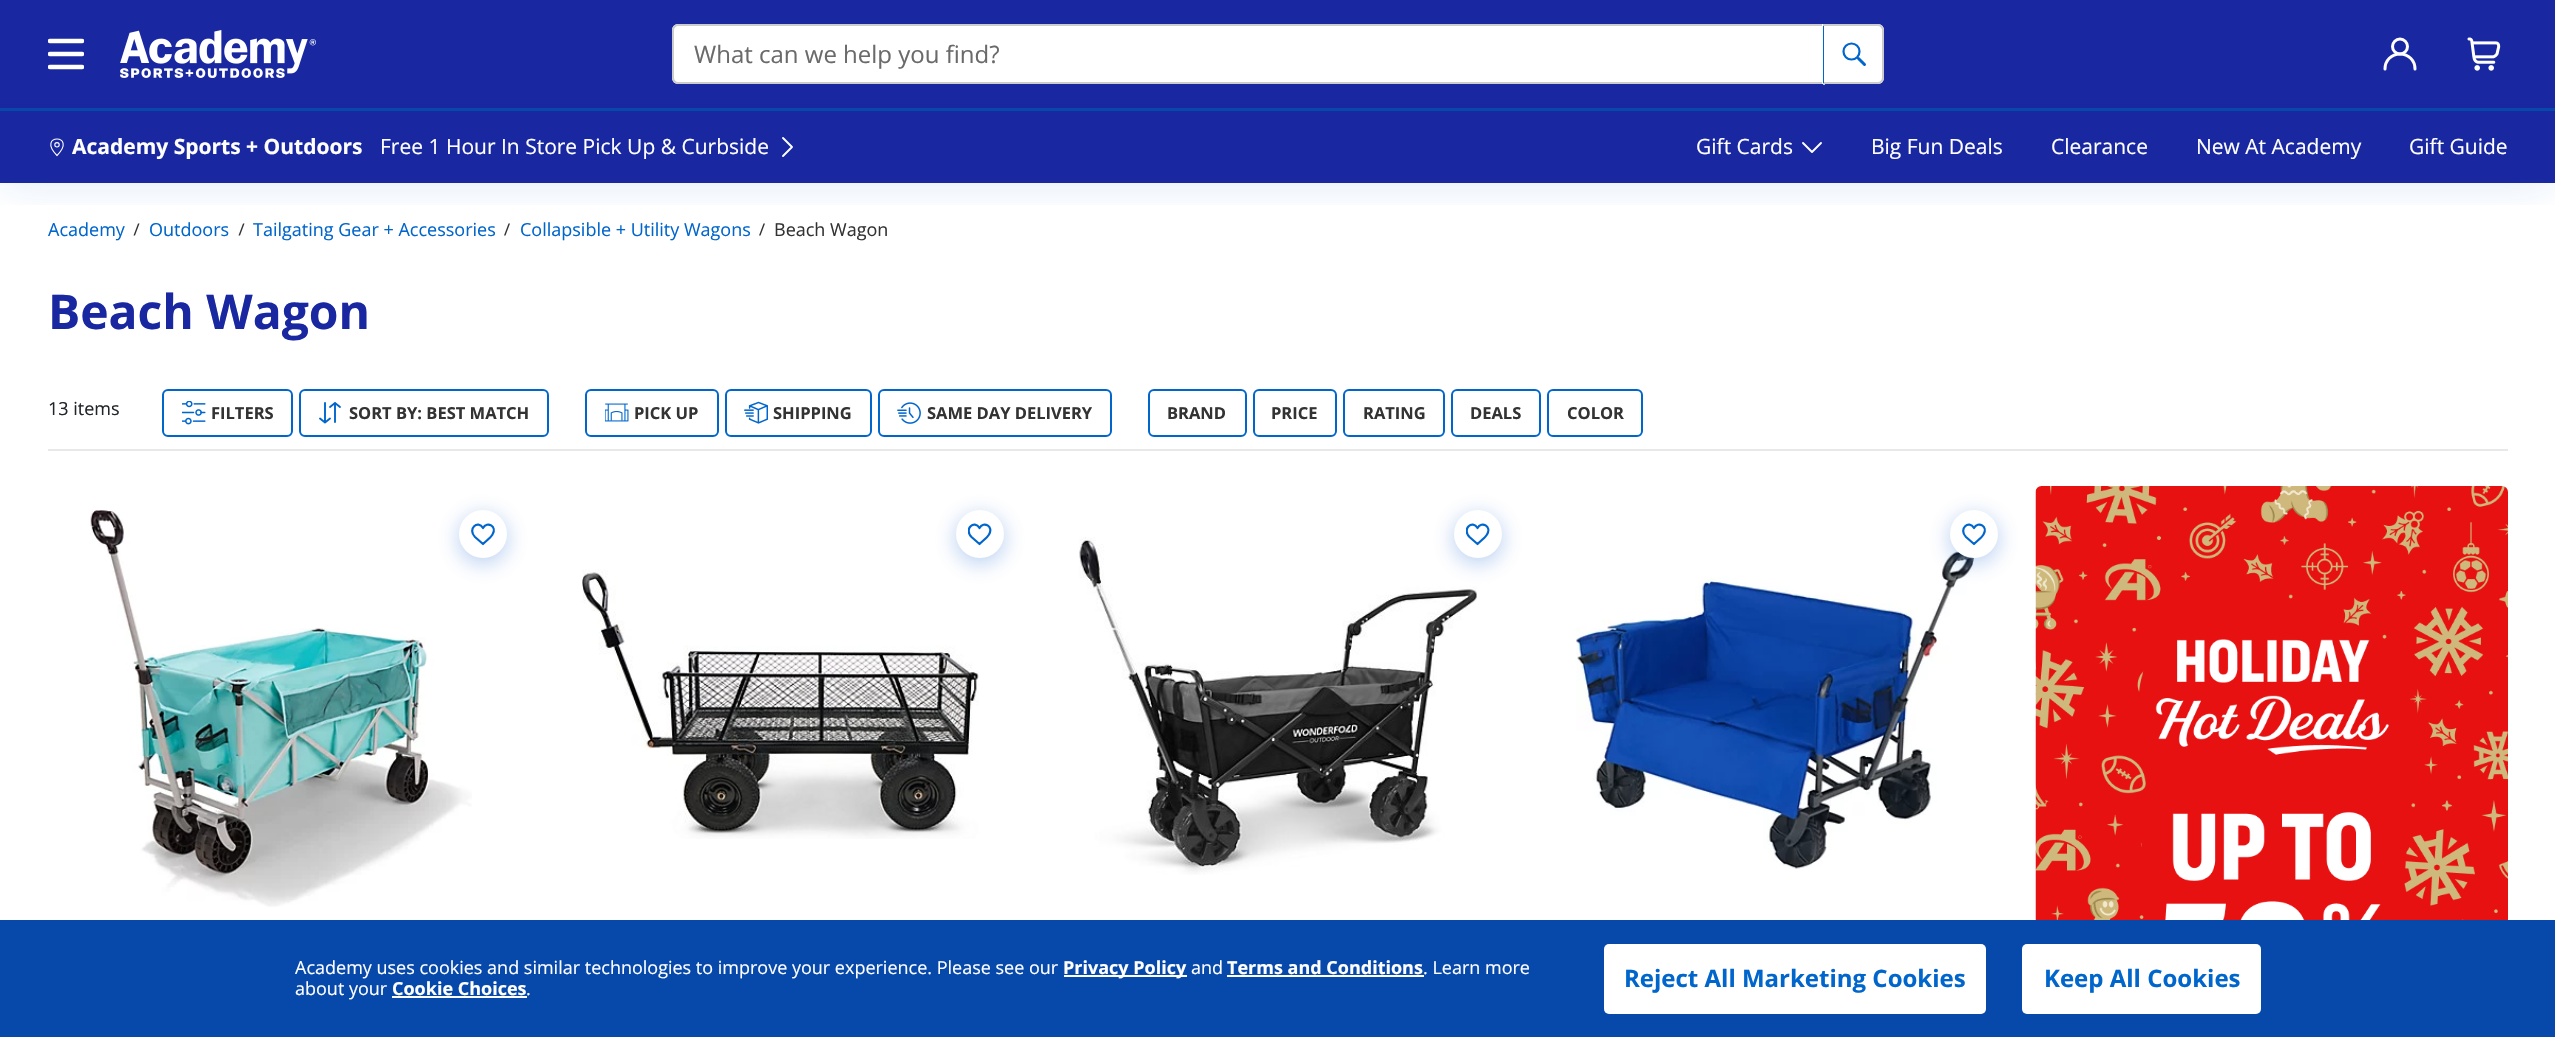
void draw(SkCanvas* canvas) {
  SkPaint paint;
  paint.setAntiAlias(true);
  auto face = [&](const char* family, int weight, float size, bool italic = false) {
    SkFontStyle style(weight, SkFontStyle::kNormal_Width,
      italic ? SkFontStyle::kItalic_Slant : SkFontStyle::kUpright_Slant);
    SkFont result(fontMgr->matchFamilyStyle(family, style), size);
    result.setSubpixel(true);
    return result;
  };
  auto paste = [&](const char* path, float x, float y, float w, float h) {
    auto image = SkImages::DeferredFromEncodedData(SkData::MakeFromFileName(path));
    canvas->drawImageRect(image, SkRect::MakeXYWH(x, y, w, h), SkSamplingOptions());
  };
  auto shape = [&](const char* data, bool evenOdd = false) {
    SkPath result = *SkParsePath::FromSVGString(data);
    if (evenOdd) result.setFillType(SkPathFillType::kEvenOdd);
    return result;
  };
  canvas->clear(0xffffffff);
  paint.setColor(0xff1928a0);
  canvas->drawRect(SkRect::MakeXYWH(0, 0, 2555, 183), paint);
  paint.setColor(0xff333333);
  canvas->drawPath(shape("M139.5 223.5L135 235.5H133.5L138 223.5Z"), paint);
  canvas->drawPath(shape("M244.5 223.5L240 235.5H238.5L243 223.5Z"), paint);
  canvas->drawPath(shape("M510 223.5L505.5 235.5H504L508.5 223.5Z"), paint);
  canvas->drawPath(shape("M765 223.5L760.5 235.5H759L763.5 223.5Z"), paint);
  canvas->save();
  canvas->clipRect(SkRect::MakeXYWH(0, 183, 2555, 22));
  paint.setColor(0x1f0255cc);
  paint.setMaskFilter(SkMaskFilter::MakeBlur(kNormal_SkBlurStyle, 22.5f));
  canvas->drawRect(SkRect::MakeXYWH(0, 0, 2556, 183), paint);
  paint.setMaskFilter(nullptr);
  canvas->restore();
  canvas->save();
  canvas->clipRect(SkRect::MakeXYWH(48, 36, 36, 36));
  paint.setStroke(true);
  paint.setStrokeWidth(4.5f);
  paint.setStrokeCap(SkPaint::kRound_Cap);
  paint.setColor(0xffffffff);
  canvas->drawPath(shape("M50 41H82M82 54H50M50 67H82"), paint);
  canvas->restore();
  paste("img/1.png", 120, 30, 196, 48);
  paint.setStroke(false);
  canvas->drawRoundRect(SkRect::MakeXYWH(672, 24, 1212, 60), 6, 6, paint);
  {
    const struct { float x, y, w, h; SkColor color; } items[] = {
      {1823, 26, 1, 57, 0xff0066cc},
      {1823, 24, 2, 2, 0xffcccccc},
      {1823, 83, 2, 2, 0xffcccccc},
    };
    for (auto [x, y, w, h, color] : items) {
      paint.setColor(color);
      canvas->drawRect(SkRect::MakeXYWH(x, y, w, h), paint);
    }
  }
  canvas->drawPath(shape("M678 24H1822V84H678C675 84 672 81 672 78V30C672 27 675 24 678 24ZM678 26H1822V82H678C676 82 674 80 674 78V30C674 28 676 26 678 26Z", true), paint);
  canvas->drawPath(shape("M1824 24H1878C1881 24 1884 27 1884 30V78C1884 81 1881 84 1878 84H1824ZM1824 26H1878C1880 26 1882 28 1882 30V78C1882 80 1880 82 1878 82H1824Z", true), paint);
  paint.setStroke(true);
  paint.setStrokeWidth(3);
  paint.setColor(0xff0066cc);
  canvas->drawPath(shape("M1864.5 64.5L1858.5 58.5"), paint);
  paint.setStrokeWidth(2.2f);
  paint.setStrokeCap(SkPaint::kButt_Cap);
  canvas->drawCircle(1851.5f, 51.5f, 8, paint);
  paint.setStrokeWidth(3);
  paint.setColor(0xffffffff);
  canvas->drawCircle(2400, 46.5f, 7.5f, paint);
  paint.setStrokeCap(SkPaint::kRound_Cap);
  canvas->drawPath(shape("M2385 69C2385 60.5 2391.5 54 2400 54C2408.5 54 2415 60.5 2415 69"), paint);
  paste("img/2.png", 2467, 37, 34, 34);
  paint.setStroke(false);
  paint.setColor(0xff0749aa);
  canvas->drawRect(SkRect::MakeXYWH(0, 108, 2555, 3), paint);
  paint.setStroke(true);
  paint.setStrokeWidth(1.1f);
  paint.setStrokeCap(SkPaint::kButt_Cap);
  paint.setColor(0xffffffff);
  canvas->drawCircle(57, 144.8f, 2.2f, paint);
  canvas->drawPath(shape("M57 155.5C35.5 133.5 78.5 133.5 57 155.5Z"), paint);
  paint.setStrokeWidth(1.9f);
  paint.setStrokeCap(SkPaint::kRound_Cap);
  paint.setStrokeJoin(SkPaint::kRound_Join);
  canvas->drawPath(shape("M783 138L792 147L783 156"), paint);
  canvas->drawPath(shape("M1803 143L1812 152L1821 143"), paint);
  paint.setStroke(false);
  paint.setColor(0xffe8e8e8);
  canvas->drawRect(SkRect::MakeXYWH(48, 449, 2460, 2), paint);
  paint.setStroke(true);
  paint.setStrokeWidth(2);
  paint.setStrokeCap(SkPaint::kButt_Cap);
  paint.setStrokeJoin(SkPaint::kMiter_Join);
  paint.setColor(0xff0066cc);
  canvas->drawRoundRect(SkRect::MakeXYWH(163, 390, 129, 46), 5, 5, paint);
  paste("img/3.png", 182, 401, 24, 24);
  canvas->drawRoundRect(SkRect::MakeXYWH(300, 390, 248, 46), 5, 5, paint);
  paint.setStrokeWidth(1.9f);
  paint.setStrokeCap(SkPaint::kRound_Cap);
  paint.setStrokeJoin(SkPaint::kRound_Join);
  canvas->drawPath(shape("M325 403V422.5L320 418.5M325 422.5L330 418.5M335 422V403L330 407M335 403L340 407"), paint);
  paint.setStrokeWidth(2);
  paint.setStrokeCap(SkPaint::kButt_Cap);
  paint.setStrokeJoin(SkPaint::kMiter_Join);
  canvas->drawRoundRect(SkRect::MakeXYWH(586, 390, 132, 46), 5, 5, paint);
  paste("img/4.png", 605, 403, 24, 19);
  canvas->drawRoundRect(SkRect::MakeXYWH(726, 390, 145, 46), 5, 5, paint);
  paste("img/5.png", 744, 401, 24, 23);
  canvas->drawRoundRect(SkRect::MakeXYWH(879, 390, 232, 46), 5, 5, paint);
  paste("img/6.png", 897, 402, 24, 22);
  canvas->drawRoundRect(SkRect::MakeXYWH(1149, 390, 97, 46), 5, 5, paint);
  canvas->drawRoundRect(SkRect::MakeXYWH(1254, 390, 82, 46), 5, 5, paint);
  canvas->drawRoundRect(SkRect::MakeXYWH(1344, 390, 100, 46), 5, 5, paint);
  canvas->drawRoundRect(SkRect::MakeXYWH(1452, 390, 88, 46), 5, 5, paint);
  canvas->drawRoundRect(SkRect::MakeXYWH(1548, 390, 94, 46), 5, 5, paint);
  paste("img/7.png", 90, 510, 382, 397);
  paint.setStroke(false);
  paint.setColor(0x4d0255cc);
  paint.setMaskFilter(SkMaskFilter::MakeBlur(kNormal_SkBlurStyle, 11));
  canvas->drawRoundRect(SkRect::MakeXYWH(459, 515, 48, 48), 24, 24, paint);
  paint.setMaskFilter(nullptr);
  paint.setColor(0xffffffff);
  canvas->drawCircle(483, 534, 24, paint);
  paint.setStroke(true);
  paint.setStrokeWidth(2.2f);
  paint.setStrokeCap(SkPaint::kRound_Cap);
  paint.setStrokeJoin(SkPaint::kRound_Join);
  paint.setColor(0xff0066cc);
  canvas->drawPath(shape("M483 544C486 541 490.5 538 492.5 534.5C497.5 526.5 487 520.5 483 528C478 519.5 467 529 475 537Z"), paint);
  paste("img/8.png", 582, 569, 397, 270);
  paint.setStroke(false);
  paint.setColor(0x4d0255cc);
  paint.setMaskFilter(SkMaskFilter::MakeBlur(kNormal_SkBlurStyle, 11));
  canvas->drawRoundRect(SkRect::MakeXYWH(956, 515, 48, 48), 24, 24, paint);
  paint.setMaskFilter(nullptr);
  paint.setColor(0xffffffff);
  canvas->drawCircle(980, 534, 24, paint);
  canvas->save();
  canvas->clipRect(SkRect::MakeXYWH(968, 522, 24, 24));
  paint.setStroke(true);
  paint.setColor(0xff0066cc);
  canvas->drawPath(shape("M979.5 544C982.5 541 987 538 989 534.5C994 526.5 983.5 520.5 979.5 528C974.5 519.5 963.5 529 971.5 537Z"), paint);
  canvas->restore();
  paste("img/9.png", 1079, 537, 398, 338);
  paint.setStroke(false);
  paint.setColor(0x4d0255cc);
  paint.setMaskFilter(SkMaskFilter::MakeBlur(kNormal_SkBlurStyle, 11));
  canvas->drawRoundRect(SkRect::MakeXYWH(1454, 515, 48, 48), 24, 24, paint);
  paint.setMaskFilter(nullptr);
  paint.setColor(0xffffffff);
  canvas->drawCircle(1478, 534, 24, paint);
  canvas->save();
  canvas->clipRect(SkRect::MakeXYWH(1466, 522, 24, 24));
  paint.setStroke(true);
  paint.setColor(0xff0066cc);
  canvas->drawPath(shape("M1477.5 544C1480.5 541 1485 538 1487 534.5C1492 526.5 1481.5 520.5 1477.5 528C1472.5 519.5 1461.5 529 1469.5 537Z"), paint);
  canvas->restore();
  paste("img/10.png", 1576, 548, 398, 321);
  paint.setStroke(false);
  paint.setColor(0x4d0255cc);
  paint.setMaskFilter(SkMaskFilter::MakeBlur(kNormal_SkBlurStyle, 11));
  canvas->drawRoundRect(SkRect::MakeXYWH(1950, 515, 48, 48), 24, 24, paint);
  paint.setMaskFilter(nullptr);
  paint.setColor(0xffffffff);
  canvas->drawCircle(1974, 534, 24, paint);
  paint.setStroke(true);
  paint.setColor(0xff0066cc);
  canvas->drawPath(shape("M1974 544C1977 541 1981.5 538 1983.5 534.5C1988.5 526.5 1978 520.5 1974 528C1969 519.5 1958 529 1966 537Z"), paint);
  paste("img/11.png", 2035, 486, 473, 434);
  paint.setStroke(false);
  {
    const struct { float x, y, w, h; SkColor color; } items[] = {
      {0, 920, 2555, 117, 0xff0749aa},
      {1064, 975, 123, 2, 0xffffffff},
      {1227, 975, 197, 2, 0xffffffff},
      {392, 996, 135, 2, 0xffffffff},
    };
    for (auto [x, y, w, h, color] : items) {
      paint.setColor(color);
      canvas->drawRect(SkRect::MakeXYWH(x, y, w, h), paint);
    }
  }
  canvas->drawRoundRect(SkRect::MakeXYWH(1604, 944, 382, 70), 5, 5, paint);
  canvas->drawRoundRect(SkRect::MakeXYWH(2022, 944, 239, 70), 5, 5, paint);
  auto f0 = face("Open Sans", 400, 24);
  paint.setColor(0xff6a6a6a);
  canvas->drawString("What can we help you find?", 694, 63, f0, paint);
  canvas->save();
  canvas->clipRect(SkRect::MakeXYWH(72, 135, 291, 24));
  auto f1 = face("Open Sans", 700, 21);
  paint.setColor(0xffffffff);
  canvas->drawString("Academy Sports + Outdoors", 72, 154, f1, paint);
  canvas->restore();
  auto f2 = face("Open Sans", 400, 21);
  {
    const struct { const char* s; float x, y; } items[] = {
      {"Free 1 Hour In Store Pick Up & Curbside", 380, 154},
      {"Gift Cards", 1696, 154},
      {"Big Fun Deals", 1871, 154},
      {"Clearance", 2051, 154},
      {"New At Academy", 2196, 154},
      {"Gift Guide", 2409, 154},
    };
    for (auto [s, x, y] : items) {
      canvas->drawString(s, x, y, f2, paint);
    }
  }
  auto f3 = face("Open Sans", 400, 18);
  paint.setColor(0xff0066cc);
  {
    const struct { const char* s; float x, y; } items[] = {
      {"Academy", 48, 236},
      {"Outdoors", 149, 236},
      {"Tailgating Gear + Accessories", 253, 236},
      {"Collapsible + Utility Wagons", 520, 236},
    };
    for (auto [s, x, y] : items) {
      canvas->drawString(s, x, y, f3, paint);
    }
  }
  paint.setColor(0xff333333);
  canvas->drawString("Beach Wagon", 774, 236, f3, paint);
  auto f4 = face("Open Sans", 700, 48);
  paint.setColor(0xff1928a0);
  canvas->drawString("Beach Wagon", 48, 329, f4, paint);
  paint.setColor(0xff212529);
  canvas->drawString("13 items", 48, 415, f3, paint);
  auto f5 = face("Open Sans", 700, 16.5f);
  paint.setColor(0xff333333);
  {
    const struct { const char* s; float x, y; } items[] = {
      {"FILTERS", 211, 419},
      {"SORT BY: BEST MATCH", 349, 419},
      {"PICK UP", 634, 419},
      {"SHIPPING", 773, 419},
      {"SAME DAY DELIVERY", 927, 419},
      {"BRAND", 1167, 419},
      {"PRICE", 1271, 419},
      {"RATING", 1363, 419},
      {"DEALS", 1470, 419},
      {"COLOR", 1567, 419},
    };
    for (auto [s, x, y] : items) {
      canvas->drawString(s, x, y, f5, paint);
    }
  }
  paint.setColor(0xffffffff);
  canvas->drawString("Academy uses cookies and similar technologies to improve your experience. Please see our", 295, 974, f3, paint);
  auto f6 = face("Open Sans", 700, 18);
  canvas->drawString("Privacy Policy", 1063, 974, f6, paint);
  canvas->drawString("and", 1191, 974, f3, paint);
  canvas->drawString("Terms and Conditions", 1227, 974, f6, paint);
  canvas->drawString(". Learn more", 1423, 974, f3, paint);
  canvas->drawString("about your", 295, 995, f3, paint);
  canvas->drawString("Cookie Choices", 392, 995, f6, paint);
  canvas->drawString(".", 526, 995, f3, paint);
  auto f7 = face("Open Sans", 700, 24);
  paint.setColor(0xff0066cc);
  canvas->drawString("Reject All Marketing Cookies", 1624, 987, f7, paint);
  canvas->drawString("Keep All Cookies", 2044, 987, f7, paint);
}
